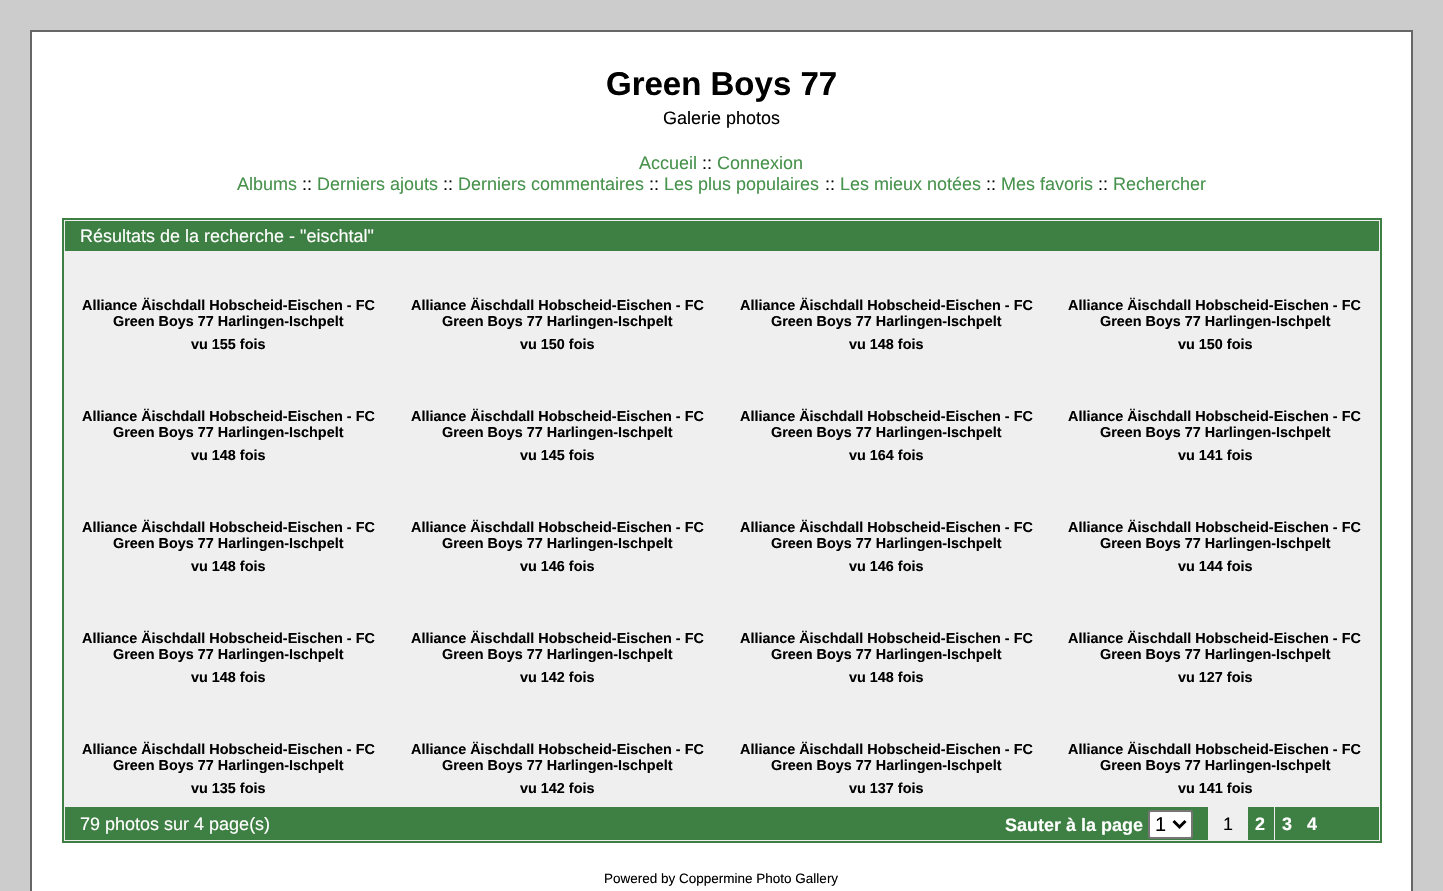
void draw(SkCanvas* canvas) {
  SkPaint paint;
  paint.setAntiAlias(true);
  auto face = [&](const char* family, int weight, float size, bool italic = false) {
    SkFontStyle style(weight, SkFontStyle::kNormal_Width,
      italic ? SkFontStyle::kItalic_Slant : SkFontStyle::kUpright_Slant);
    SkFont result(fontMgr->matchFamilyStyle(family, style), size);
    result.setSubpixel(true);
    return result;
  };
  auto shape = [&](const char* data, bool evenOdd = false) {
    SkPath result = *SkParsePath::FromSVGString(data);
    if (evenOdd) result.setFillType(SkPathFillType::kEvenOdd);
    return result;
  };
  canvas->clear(0xffcccccc);
  paint.setColor(0xffffffff);
  canvas->drawRect(SkRect::MakeXYWH(31, 31, 1381, 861), paint);
  paint.setStroke(true);
  paint.setStrokeWidth(2);
  paint.setColor(0xff666666);
  canvas->drawRect(SkRect::MakeXYWH(31, 31, 1381, 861), paint);
  paint.setStroke(false);
  paint.setColor(0xffefefef);
  canvas->drawRect(SkRect::MakeXYWH(63, 219, 1318, 623), paint);
  paint.setStroke(true);
  paint.setColor(0xff3e8043);
  canvas->drawRect(SkRect::MakeXYWH(63, 219, 1318, 623), paint);
  paint.setStroke(false);
  canvas->drawRect(SkRect::MakeXYWH(65, 221, 1314, 30), paint);
  canvas->drawRect(SkRect::MakeXYWH(65, 807, 1143, 33), paint);
  paint.setColor(0xffffffff);
  canvas->drawRoundRect(SkRect::MakeXYWH(1149, 811, 43, 27), 2, 2, paint);
  paint.setStroke(true);
  paint.setColor(0xff767676);
  canvas->drawRoundRect(SkRect::MakeXYWH(1149, 811, 43, 27), 2, 2, paint);
  paint.setStrokeWidth(3);
  paint.setColor(0xff000000);
  canvas->drawPath(shape("M1173.5 821L1179.5 827L1185.5 821"), paint);
  paint.setStroke(false);
  paint.setColor(0xff3e8043);
  canvas->drawRect(SkRect::MakeXYWH(1248, 807, 26, 33), paint);
  canvas->drawRect(SkRect::MakeXYWH(1275, 807, 104, 33), paint);
  auto f0 = face("Liberation Sans", 700, 33);
  paint.setColor(0xff000000);
  canvas->drawString("Green Boys 77", 606, 95, f0, paint);
  auto f1 = face("Liberation Sans", 400, 18);
  canvas->drawString("Galerie photos", 663, 124, f1, paint);
  paint.setColor(0xff47924c);
  canvas->drawString("Accueil", 639, 169, f1, paint);
  paint.setColor(0xff000000);
  canvas->drawString("::", 702, 169, f1, paint);
  paint.setColor(0xff47924c);
  canvas->drawString("Connexion", 717, 169, f1, paint);
  canvas->drawString("Albums", 237, 190, f1, paint);
  paint.setColor(0xff000000);
  canvas->drawString("::", 302, 190, f1, paint);
  paint.setColor(0xff47924c);
  canvas->drawString("Derniers ajouts", 317, 190, f1, paint);
  paint.setColor(0xff000000);
  canvas->drawString("::", 443, 190, f1, paint);
  paint.setColor(0xff47924c);
  canvas->drawString("Derniers commentaires", 458, 190, f1, paint);
  paint.setColor(0xff000000);
  canvas->drawString("::", 649, 190, f1, paint);
  paint.setColor(0xff47924c);
  canvas->drawString("Les plus populaires", 664, 190, f1, paint);
  paint.setColor(0xff000000);
  canvas->drawString("::", 825, 190, f1, paint);
  paint.setColor(0xff47924c);
  canvas->drawString("Les mieux notées", 840, 190, f1, paint);
  paint.setColor(0xff000000);
  canvas->drawString("::", 986, 190, f1, paint);
  paint.setColor(0xff47924c);
  canvas->drawString("Mes favoris", 1001, 190, f1, paint);
  paint.setColor(0xff000000);
  canvas->drawString("::", 1098, 190, f1, paint);
  paint.setColor(0xff47924c);
  canvas->drawString("Rechercher", 1113, 190, f1, paint);
  paint.setColor(0xffffffff);
  canvas->drawString("Résultats de la recherche - \"eischtal\"", 80, 242, f1, paint);
  auto f2 = face("Liberation Sans", 700, 14.4f);
  paint.setColor(0xff000000);
  {
    const struct { const char* s; float x, y; } items[] = {
      {"Alliance Äischdall Hobscheid-Eischen - FC", 82, 310},
      {"Green Boys 77 Harlingen-Ischpelt", 113, 326},
      {"vu 155 fois", 191, 349},
      {"Alliance Äischdall Hobscheid-Eischen - FC", 411, 310},
      {"Green Boys 77 Harlingen-Ischpelt", 442, 326},
      {"vu 150 fois", 520, 349},
      {"Alliance Äischdall Hobscheid-Eischen - FC", 740, 310},
      {"Green Boys 77 Harlingen-Ischpelt", 771, 326},
      {"vu 148 fois", 849, 349},
      {"Alliance Äischdall Hobscheid-Eischen - FC", 1068, 310},
      {"Green Boys 77 Harlingen-Ischpelt", 1100, 326},
      {"vu 150 fois", 1178, 349},
      {"Alliance Äischdall Hobscheid-Eischen - FC", 82, 421},
      {"Green Boys 77 Harlingen-Ischpelt", 113, 437},
      {"vu 148 fois", 191, 460},
      {"Alliance Äischdall Hobscheid-Eischen - FC", 411, 421},
      {"Green Boys 77 Harlingen-Ischpelt", 442, 437},
      {"vu 145 fois", 520, 460},
      {"Alliance Äischdall Hobscheid-Eischen - FC", 740, 421},
      {"Green Boys 77 Harlingen-Ischpelt", 771, 437},
      {"vu 164 fois", 849, 460},
      {"Alliance Äischdall Hobscheid-Eischen - FC", 1068, 421},
      {"Green Boys 77 Harlingen-Ischpelt", 1100, 437},
      {"vu 141 fois", 1178, 460},
      {"Alliance Äischdall Hobscheid-Eischen - FC", 82, 532},
      {"Green Boys 77 Harlingen-Ischpelt", 113, 548},
      {"vu 148 fois", 191, 571},
      {"Alliance Äischdall Hobscheid-Eischen - FC", 411, 532},
      {"Green Boys 77 Harlingen-Ischpelt", 442, 548},
      {"vu 146 fois", 520, 571},
      {"Alliance Äischdall Hobscheid-Eischen - FC", 740, 532},
      {"Green Boys 77 Harlingen-Ischpelt", 771, 548},
      {"vu 146 fois", 849, 571},
      {"Alliance Äischdall Hobscheid-Eischen - FC", 1068, 532},
      {"Green Boys 77 Harlingen-Ischpelt", 1100, 548},
      {"vu 144 fois", 1178, 571},
      {"Alliance Äischdall Hobscheid-Eischen - FC", 82, 643},
      {"Green Boys 77 Harlingen-Ischpelt", 113, 659},
      {"vu 148 fois", 191, 682},
      {"Alliance Äischdall Hobscheid-Eischen - FC", 411, 643},
      {"Green Boys 77 Harlingen-Ischpelt", 442, 659},
      {"vu 142 fois", 520, 682},
      {"Alliance Äischdall Hobscheid-Eischen - FC", 740, 643},
      {"Green Boys 77 Harlingen-Ischpelt", 771, 659},
      {"vu 148 fois", 849, 682},
      {"Alliance Äischdall Hobscheid-Eischen - FC", 1068, 643},
      {"Green Boys 77 Harlingen-Ischpelt", 1100, 659},
      {"vu 127 fois", 1178, 682},
      {"Alliance Äischdall Hobscheid-Eischen - FC", 82, 754},
      {"Green Boys 77 Harlingen-Ischpelt", 113, 770},
      {"vu 135 fois", 191, 793},
      {"Alliance Äischdall Hobscheid-Eischen - FC", 411, 754},
      {"Green Boys 77 Harlingen-Ischpelt", 442, 770},
      {"vu 142 fois", 520, 793},
      {"Alliance Äischdall Hobscheid-Eischen - FC", 740, 754},
      {"Green Boys 77 Harlingen-Ischpelt", 771, 770},
      {"vu 137 fois", 849, 793},
      {"Alliance Äischdall Hobscheid-Eischen - FC", 1068, 754},
      {"Green Boys 77 Harlingen-Ischpelt", 1100, 770},
      {"vu 141 fois", 1178, 793},
    };
    for (auto [s, x, y] : items) {
      canvas->drawString(s, x, y, f2, paint);
    }
  }
  paint.setColor(0xffffffff);
  canvas->drawString("79 photos sur 4 page(s)", 80, 830, f1, paint);
  auto f3 = face("Liberation Sans", 700, 18);
  canvas->drawString("Sauter à la page", 1005, 831, f3, paint);
  auto f4 = face("Liberation Sans", 400, 20);
  paint.setColor(0xff000000);
  canvas->drawString("1", 1155, 831, f4, paint);
  canvas->drawString("1", 1223, 830, f1, paint);
  paint.setColor(0xffffffff);
  {
    const struct { const char* s; float x, y; } items[] = {
      {"2", 1255, 830},
      {"3", 1282, 830},
      {"4", 1307, 830},
    };
    for (auto [s, x, y] : items) {
      canvas->drawString(s, x, y, f3, paint);
    }
  }
  auto f5 = face("Liberation Sans", 400, 13.5f);
  paint.setColor(0xff000000);
  canvas->drawString("Powered by Coppermine Photo Gallery", 604, 883, f5, paint);
}
